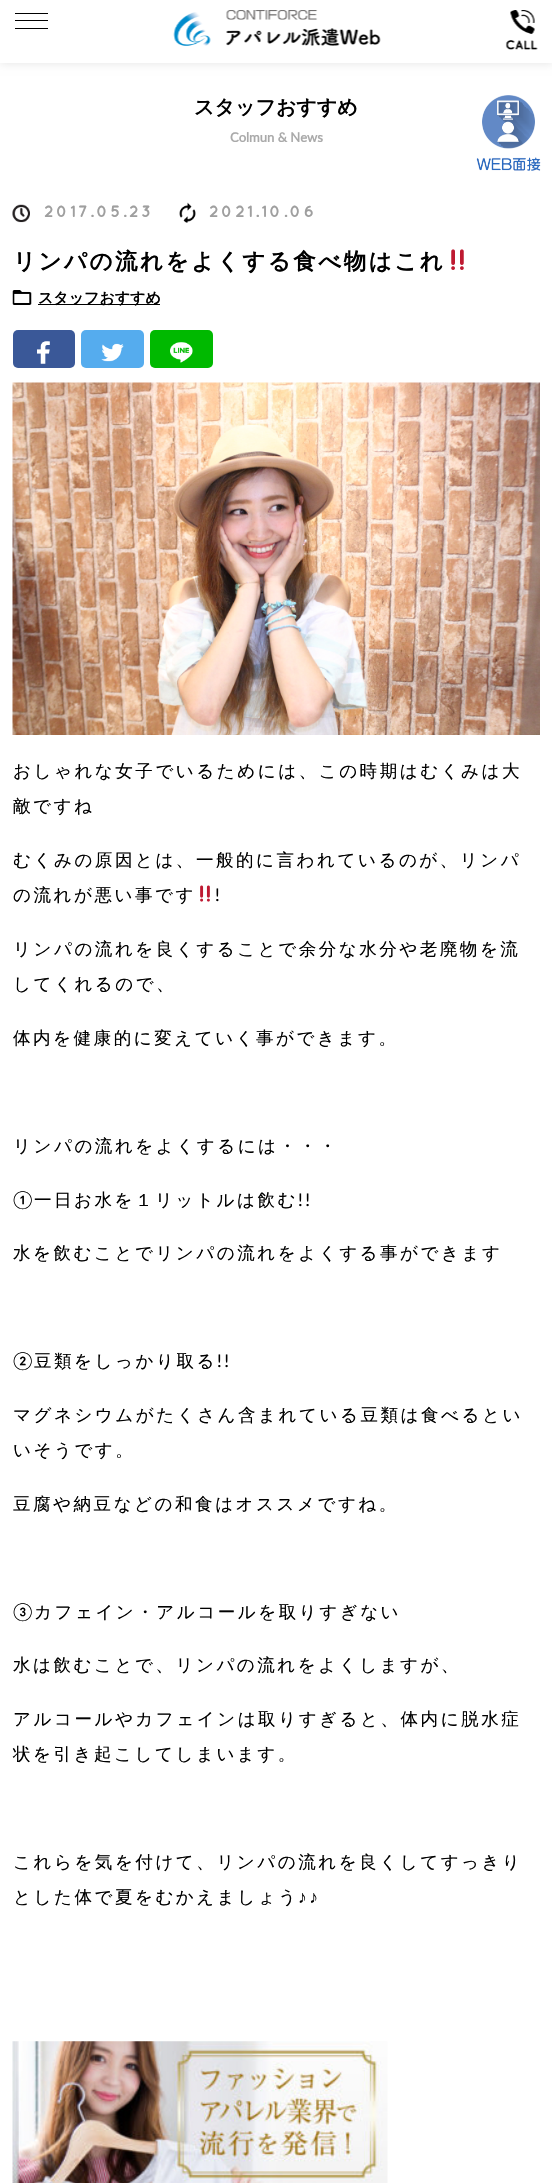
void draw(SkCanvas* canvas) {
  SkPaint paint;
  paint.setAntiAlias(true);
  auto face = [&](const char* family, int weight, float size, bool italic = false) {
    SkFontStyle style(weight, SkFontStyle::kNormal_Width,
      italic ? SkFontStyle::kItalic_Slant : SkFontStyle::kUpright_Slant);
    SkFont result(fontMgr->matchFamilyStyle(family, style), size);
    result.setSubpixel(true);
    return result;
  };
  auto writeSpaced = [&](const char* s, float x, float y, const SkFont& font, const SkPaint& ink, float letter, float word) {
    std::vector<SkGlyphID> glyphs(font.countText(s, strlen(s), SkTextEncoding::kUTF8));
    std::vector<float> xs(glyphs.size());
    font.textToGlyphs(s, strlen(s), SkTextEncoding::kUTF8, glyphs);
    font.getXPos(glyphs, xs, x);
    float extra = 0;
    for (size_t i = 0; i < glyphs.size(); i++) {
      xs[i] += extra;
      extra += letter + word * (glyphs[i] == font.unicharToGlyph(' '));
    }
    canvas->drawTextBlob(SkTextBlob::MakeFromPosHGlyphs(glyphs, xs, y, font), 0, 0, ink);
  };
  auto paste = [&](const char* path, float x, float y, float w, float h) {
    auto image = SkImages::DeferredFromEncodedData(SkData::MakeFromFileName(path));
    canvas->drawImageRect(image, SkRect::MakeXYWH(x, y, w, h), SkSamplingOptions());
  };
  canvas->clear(0xffffffff);
  paint.setColor(0x1c000000);
  paint.setMaskFilter(SkMaskFilter::MakeBlur(kNormal_SkBlurStyle, 4.5f));
  canvas->drawRect(SkRect::MakeXYWH(0, 0, 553, 63), paint);
  paint.setMaskFilter(nullptr);
  {
    const struct { float x, y, w, h; SkColor color; } items[] = {
      {0, 0, 552, 63, 0xffffffff},
      {15, 13, 33, 1, 0xff000000},
      {15, 20, 33, 1, 0xff000000},
      {15, 28, 33, 1, 0xff000000},
    };
    for (auto [x, y, w, h, color] : items) {
      paint.setColor(color);
      canvas->drawRect(SkRect::MakeXYWH(x, y, w, h), paint);
    }
  }
  paste("img/1.png", 173, 10, 208, 36);
  paste("img/2.png", 505, 10, 33, 40);
  paste("img/3.png", 476, 95, 65, 76);
  paste("img/4.png", 12, 204, 18, 19);
  paste("img/5.png", 179, 202, 17, 21);
  paste("img/6.png", 451, 249, 13, 21);
  paste("img/7.png", 12, 290, 20, 15);
  canvas->drawRect(SkRect::MakeXYWH(38, 304, 122, 1), paint);
  paint.setColor(0xff3a5898);
  canvas->drawRoundRect(SkRect::MakeXYWH(13, 330, 62, 38), 5, 5, paint);
  paste("img/8.png", 37, 341, 13, 23);
  paint.setColor(0xff55acee);
  canvas->drawRoundRect(SkRect::MakeXYWH(81, 330, 63, 38), 5, 5, paint);
  paste("img/9.png", 101, 343, 23, 19);
  paint.setColor(0xff00b900);
  canvas->drawRoundRect(SkRect::MakeXYWH(150, 330, 63, 38), 5, 5, paint);
  paste("img/10.png", 170, 342, 23, 21);
  paste("img/11.png", 12, 382, 528, 353);
  paste("img/12.png", 200, 885, 10, 17);
  paste("img/13.png", 12, 2041, 376, 142);
  auto f0 = face("WenQuanYi Zen Hei", 700, 20);
  paint.setColor(0xff000000);
  canvas->drawString("スタッフおすすめ", 194, 114, f0, paint);
  auto f1 = face("Lato", 700, 13);
  paint.setColor(0xffaaaaaa);
  canvas->drawString("Colmun & News", 230, 142, f1, paint);
  auto f2 = face("Quicksand", 700, 16.25f);
  paint.setColor(0xff9f9f9f);
  writeSpaced("2017.05.23", 44, 217, f2, paint, 2.5f, 0);
  writeSpaced("2021.10.06", 209, 217, f2, paint, 2.5f, 0);
  auto f3 = face("WenQuanYi Zen Hei", 700, 22.5f);
  paint.setColor(0xff000000);
  writeSpaced("リンパの流れをよくする食べ物はこれ", 13, 269, f3, paint, 2.5f, 0);
  auto f4 = face("WenQuanYi Zen Hei", 700, 15);
  canvas->drawString("スタッフおすすめ", 38, 303, f4, paint);
  auto f5 = face("WenQuanYi Zen Hei", 500, 17.55f);
  {
    const struct { const char* s; float x, y; } items[] = {
      {"おしゃれな女子でいるためには、この時期はむくみは大", 13, 777},
      {"敵ですね", 13, 812},
      {"むくみの原因とは、一般的に言われているのが、リンパ", 13, 866},
      {"の流れが悪い事です", 13, 901},
    };
    for (auto [s, x, y] : items) {
      writeSpaced(s, x, y, f5, paint, 2.5f, 0);
    }
  }
  auto f6 = face("Lato", 400, 17.55f);
  writeSpaced("!", 215, 901, f6, paint, 2.5f, 0);
  {
    const struct { const char* s; float x, y; } items[] = {
      {"リンパの流れを良くすることで余分な水分や老廃物を流", 13, 955},
      {"してくれるので、", 13, 990},
      {"体内を健康的に変えていく事ができます。", 13, 1044},
      {"リンパの流れをよくするには・・・", 13, 1152},
    };
    for (auto [s, x, y] : items) {
      writeSpaced(s, x, y, f5, paint, 2.5f, 0);
    }
  }
  writeSpaced("①", 13, 1206, f6, paint, 2.5f, 0);
  writeSpaced("一日お水を１リットルは飲む", 34, 1206, f5, paint, 2.5f, 0);
  writeSpaced("!!", 298, 1206, f6, paint, 2.5f, 0);
  writeSpaced("水を飲むことでリンパの流れをよくする事ができます", 13, 1259, f5, paint, 2.5f, 0);
  writeSpaced("②", 13, 1367, f6, paint, 2.5f, 0);
  writeSpaced("豆類をしっかり取る", 34, 1367, f5, paint, 2.5f, 0);
  writeSpaced("!!", 217, 1367, f6, paint, 2.5f, 0);
  {
    const struct { const char* s; float x, y; } items[] = {
      {"マグネシウムがたくさん含まれている豆類は食べるとい", 13, 1421},
      {"いそうです。", 13, 1456},
      {"豆腐や納豆などの和食はオススメですね。", 13, 1510},
    };
    for (auto [s, x, y] : items) {
      writeSpaced(s, x, y, f5, paint, 2.5f, 0);
    }
  }
  writeSpaced("③", 13, 1618, f6, paint, 2.5f, 0);
  {
    const struct { const char* s; float x, y; } items[] = {
      {"カフェイン・アルコールを取りすぎない", 34, 1618},
      {"水は飲むことで、リンパの流れをよくしますが、", 13, 1671},
      {"アルコールやカフェインは取りすぎると、体内に脱水症", 13, 1725},
      {"状を引き起こしてしまいます。", 13, 1760},
      {"これらを気を付けて、リンパの流れを良くしてすっきり", 13, 1868},
      {"とした体で夏をむかえましょう", 13, 1903},
    };
    for (auto [s, x, y] : items) {
      writeSpaced(s, x, y, f5, paint, 2.5f, 0);
    }
  }
  auto f7 = face("Liberation Sans", 400, 17.55f);
  writeSpaced("♪♪", 298, 1903, f7, paint, 2.5f, 0);
}
